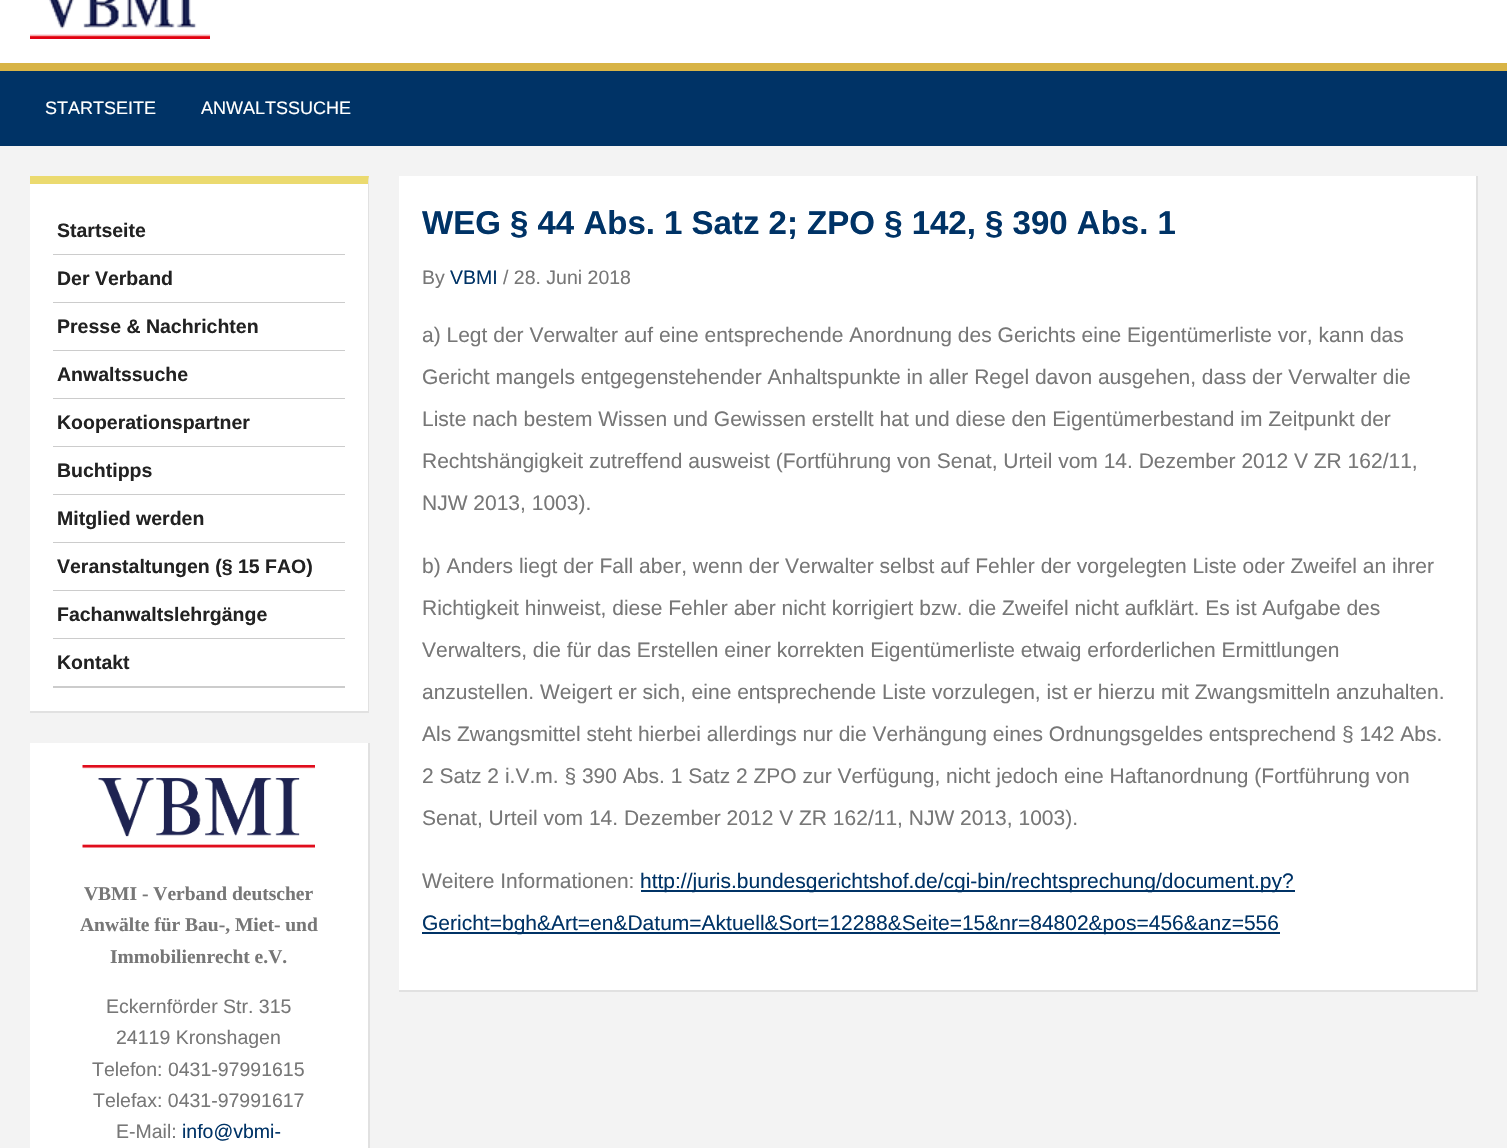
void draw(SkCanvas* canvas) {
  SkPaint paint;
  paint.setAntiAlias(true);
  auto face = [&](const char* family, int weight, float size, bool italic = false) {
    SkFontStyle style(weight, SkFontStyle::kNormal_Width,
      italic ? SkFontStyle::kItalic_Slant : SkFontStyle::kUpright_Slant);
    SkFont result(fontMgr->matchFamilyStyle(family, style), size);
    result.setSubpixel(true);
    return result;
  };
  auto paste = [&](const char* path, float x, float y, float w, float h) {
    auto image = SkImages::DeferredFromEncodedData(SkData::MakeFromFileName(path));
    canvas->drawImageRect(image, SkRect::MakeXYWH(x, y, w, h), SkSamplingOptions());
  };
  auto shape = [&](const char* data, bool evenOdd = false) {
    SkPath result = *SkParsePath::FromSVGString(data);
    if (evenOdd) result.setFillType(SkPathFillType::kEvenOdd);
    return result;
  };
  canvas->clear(0xfff3f3f3);
  paint.setColor(0xffffffff);
  canvas->drawRect(SkRect::MakeXYWH(0, 0, 1507, 63), paint);
  paste("img/1.png", 30, 0, 180, 39);
  {
    const struct { float x, y, w, h; SkColor color; } items[] = {
      {0, 71, 1507, 75, 0xff003366},
      {0, 63, 1507, 8, 0xffd8b446},
      {30, 176, 339, 535, 0xffffffff},
    };
    for (auto [x, y, w, h, color] : items) {
      paint.setColor(color);
      canvas->drawRect(SkRect::MakeXYWH(x, y, w, h), paint);
    }
  }
  paint.setColor(0xffebda6f);
  canvas->drawPath(shape("M30 176H369L368 184H30Z"), paint);
  paint.setColor(0xffe1e1e1);
  canvas->drawPath(shape("M369 176V712L368 711V184Z"), paint);
  {
    const struct { float x, y, w, h; SkColor color; } items[] = {
      {30, 711, 339, 2, 0xffe1e1e1},
      {53, 254, 292, 1, 0xffcccccc},
      {53, 302, 292, 1, 0xffcccccc},
      {53, 350, 292, 1, 0xffcccccc},
      {53, 398, 292, 1, 0xffcccccc},
      {53, 446, 292, 1, 0xffcccccc},
      {53, 494, 292, 1, 0xffcccccc},
      {53, 542, 292, 1, 0xffcccccc},
      {53, 590, 292, 1, 0xffcccccc},
      {53, 638, 292, 1, 0xffcccccc},
      {53, 686, 292, 2, 0xffcccccc},
      {30, 743, 338, 405, 0xffffffff},
      {368, 743, 2, 405, 0xffe1e1e1},
    };
    for (auto [x, y, w, h, color] : items) {
      paint.setColor(color);
      canvas->drawRect(SkRect::MakeXYWH(x, y, w, h), paint);
    }
  }
  paste("img/2.png", 82, 765, 233, 83);
  {
    const struct { float x, y, w, h; SkColor color; } items[] = {
      {399, 176, 1077, 814, 0xffffffff},
      {1476, 176, 2, 816, 0xffe1e1e1},
      {399, 990, 1079, 2, 0xffe1e1e1},
      {641, 890, 654, 2, 0xff003366},
      {422, 932, 858, 2, 0xff003366},
    };
    for (auto [x, y, w, h, color] : items) {
      paint.setColor(color);
      canvas->drawRect(SkRect::MakeXYWH(x, y, w, h), paint);
    }
  }
  auto f0 = face("Liberation Sans", 400, 18);
  paint.setColor(0xffffffff);
  canvas->drawString("STARTSEITE", 45, 114, f0, paint);
  canvas->drawString("ANWALTSSUCHE", 201, 114, f0, paint);
  auto f1 = face("Liberation Sans", 700, 19.5f);
  paint.setColor(0xff222222);
  {
    const struct { const char* s; float x, y; } items[] = {
      {"Startseite", 57, 237},
      {"Der Verband", 57, 285},
      {"Presse & Nachrichten", 57, 333},
      {"Anwaltssuche", 57, 381},
      {"Kooperationspartner", 57, 429},
      {"Buchtipps", 57, 477},
      {"Mitglied werden", 57, 525},
      {"Veranstaltungen (§ 15 FAO)", 57, 573},
      {"Fachanwaltslehrgänge", 57, 621},
      {"Kontakt", 57, 669},
    };
    for (auto [s, x, y] : items) {
      canvas->drawString(s, x, y, f1, paint);
    }
  }
  auto f2 = face("Liberation Serif", 700, 19.5f);
  paint.setColor(0xff777777);
  {
    const struct { const char* s; float x, y; } items[] = {
      {"VBMI - Verband deutscher", 84, 900},
      {"Anwälte für Bau-, Miet- und", 80, 931},
      {"Immobilienrecht e.V.", 110, 963},
    };
    for (auto [s, x, y] : items) {
      canvas->drawString(s, x, y, f2, paint);
    }
  }
  auto f3 = face("Liberation Sans", 400, 19.5f);
  {
    const struct { const char* s; float x, y; } items[] = {
      {"Eckernförder Str. 315", 106, 1013},
      {"24119 Kronshagen", 116, 1044},
      {"Telefon: 0431-97991615", 92, 1076},
      {"Telefax: 0431-97991617", 93, 1107},
      {"E-Mail:", 116, 1138},
    };
    for (auto [s, x, y] : items) {
      canvas->drawString(s, x, y, f3, paint);
    }
  }
  paint.setColor(0xff003366);
  canvas->drawString("info@vbmi-", 182, 1138, f3, paint);
  auto f4 = face("Liberation Sans", 700, 33);
  canvas->drawString("WEG § 44 Abs. 1 Satz 2; ZPO § 142, § 390 Abs. 1", 422, 234, f4, paint);
  paint.setColor(0xff777777);
  canvas->drawString("By", 422, 284, f3, paint);
  paint.setColor(0xff003366);
  canvas->drawString("VBMI", 450, 284, f3, paint);
  paint.setColor(0xff777777);
  canvas->drawString("/ 28. Juni 2018", 503, 284, f3, paint);
  auto f5 = face("Liberation Sans", 400, 21);
  {
    const struct { const char* s; float x, y; } items[] = {
      {"a) Legt der Verwalter auf eine entsprechende Anordnung des Gerichts eine Eigentümerliste vor, kann das", 422, 342},
      {"Gericht mangels entgegenstehender Anhaltspunkte in aller Regel davon ausgehen, dass der Verwalter die", 422, 384},
      {"Liste nach bestem Wissen und Gewissen erstellt hat und diese den Eigentümerbestand im Zeitpunkt der", 422, 426},
      {"Rechtshängigkeit zutreffend ausweist (Fortführung von Senat, Urteil vom 14. Dezember 2012 V ZR 162/11,", 422, 468},
      {"NJW 2013, 1003).", 422, 510},
      {"b) Anders liegt der Fall aber, wenn der Verwalter selbst auf Fehler der vorgelegten Liste oder Zweifel an ihrer", 422, 573},
      {"Richtigkeit hinweist, diese Fehler aber nicht korrigiert bzw. die Zweifel nicht aufklärt. Es ist Aufgabe des", 422, 615},
      {"Verwalters, die für das Erstellen einer korrekten Eigentümerliste etwaig erforderlichen Ermittlungen", 422, 657},
      {"anzustellen. Weigert er sich, eine entsprechende Liste vorzulegen, ist er hierzu mit Zwangsmitteln anzuhalten.", 422, 699},
      {"Als Zwangsmittel steht hierbei allerdings nur die Verhängung eines Ordnungsgeldes entsprechend § 142 Abs.", 422, 741},
      {"2 Satz 2 i.V.m. § 390 Abs. 1 Satz 2 ZPO zur Verfügung, nicht jedoch eine Haftanordnung (Fortführung von", 422, 783},
      {"Senat, Urteil vom 14. Dezember 2012 V ZR 162/11, NJW 2013, 1003).", 422, 825},
      {"Weitere Informationen:", 422, 888},
    };
    for (auto [s, x, y] : items) {
      canvas->drawString(s, x, y, f5, paint);
    }
  }
  paint.setColor(0xff003366);
  canvas->drawString("http://juris.bundesgerichtshof.de/cgi-bin/rechtsprechung/document.py?", 640, 888, f5, paint);
  canvas->drawString("Gericht=bgh&Art=en&Datum=Aktuell&Sort=12288&Seite=15&nr=84802&pos=456&anz=556", 422, 930, f5, paint);
}
